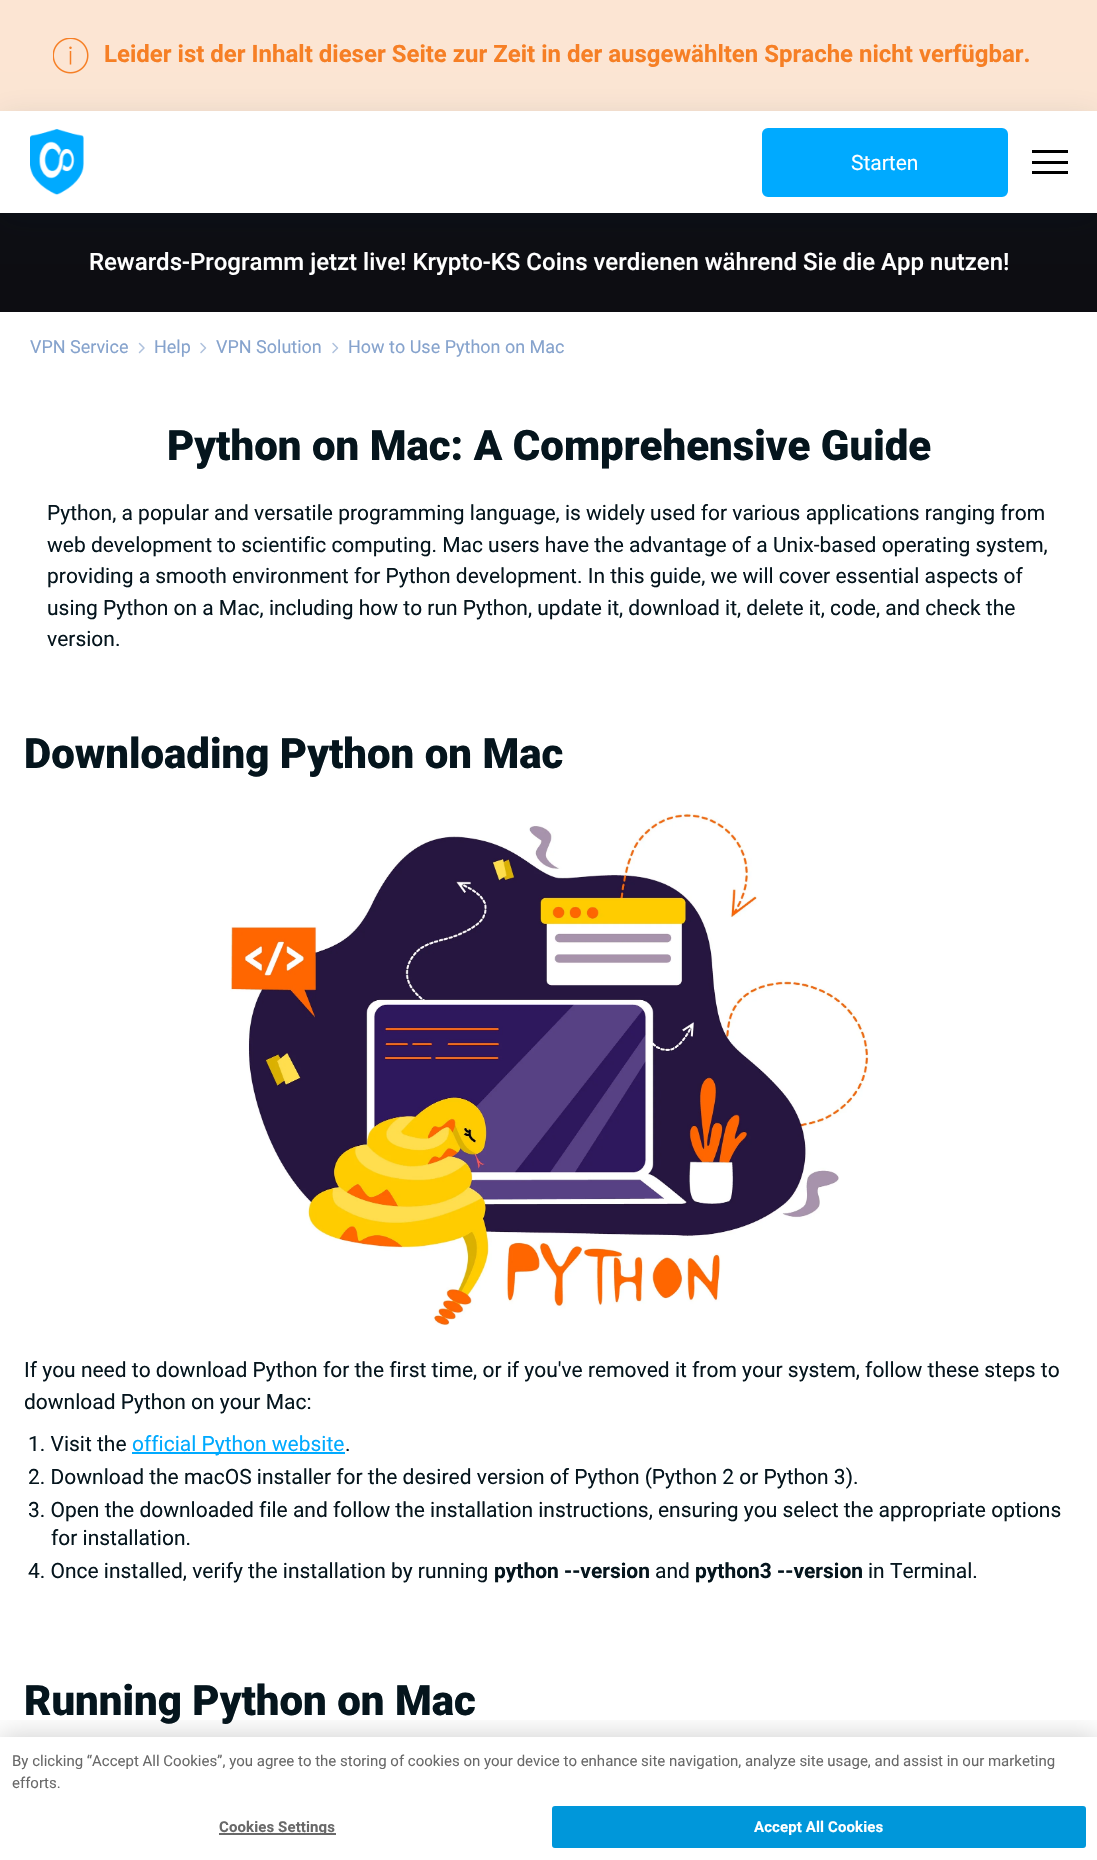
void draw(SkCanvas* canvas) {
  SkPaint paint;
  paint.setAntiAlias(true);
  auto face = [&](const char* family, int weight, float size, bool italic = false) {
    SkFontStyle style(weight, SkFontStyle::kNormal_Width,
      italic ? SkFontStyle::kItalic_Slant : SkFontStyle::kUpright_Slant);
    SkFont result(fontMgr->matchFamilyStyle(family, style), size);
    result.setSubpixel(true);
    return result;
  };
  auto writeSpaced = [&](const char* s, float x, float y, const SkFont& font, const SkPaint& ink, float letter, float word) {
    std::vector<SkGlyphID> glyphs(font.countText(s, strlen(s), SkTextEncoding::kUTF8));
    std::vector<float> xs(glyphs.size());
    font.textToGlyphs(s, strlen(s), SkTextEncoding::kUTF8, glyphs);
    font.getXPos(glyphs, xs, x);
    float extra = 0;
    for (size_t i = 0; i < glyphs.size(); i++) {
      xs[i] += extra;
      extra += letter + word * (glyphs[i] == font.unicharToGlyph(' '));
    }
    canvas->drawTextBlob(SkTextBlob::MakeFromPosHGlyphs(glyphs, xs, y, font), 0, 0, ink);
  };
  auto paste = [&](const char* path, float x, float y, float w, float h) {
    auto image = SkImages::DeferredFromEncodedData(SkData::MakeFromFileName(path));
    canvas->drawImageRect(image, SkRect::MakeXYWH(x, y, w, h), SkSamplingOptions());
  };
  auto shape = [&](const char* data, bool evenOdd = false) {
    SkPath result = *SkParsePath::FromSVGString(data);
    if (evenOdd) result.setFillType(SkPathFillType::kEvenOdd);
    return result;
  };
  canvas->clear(0xffffffff);
  paint.setColor(0xfffce5d3);
  canvas->drawRect(SkRect::MakeXYWH(0, 0, 1097, 111), paint);
  paste("img/1.png", 53, 38, 36, 36);
  paint.setColor(0xff0d0d12);
  canvas->drawRect(SkRect::MakeXYWH(0, 213, 1097, 99), paint);
  canvas->save();
  canvas->clipPath(shape("M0 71H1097V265H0ZM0 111H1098V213H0Z", true), true);
  paint.setColor(0x1f002a40);
  paint.setMaskFilter(SkMaskFilter::MakeBlur(kNormal_SkBlurStyle, 15));
  canvas->drawRect(SkRect::MakeXYWH(0, 117, 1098, 102), paint);
  paint.setMaskFilter(nullptr);
  canvas->restore();
  paste("img/2.png", 30, 129, 54, 66);
  paint.setColor(0xff00aaff);
  canvas->drawRoundRect(SkRect::MakeXYWH(763, 129, 244, 67), 5, 5, paint);
  paint.setStroke(true);
  paint.setStrokeWidth(2);
  canvas->drawRoundRect(SkRect::MakeXYWH(763, 129, 244, 67), 5, 5, paint);
  paint.setStroke(false);
  {
    const struct { float x, y, w, h; SkColor color; } items[] = {
      {1032, 150, 36, 3, 0xff000000},
      {1032, 161, 36, 3, 0xff000000},
      {1032, 171, 36, 3, 0xff000000},
    };
    for (auto [x, y, w, h, color] : items) {
      paint.setColor(color);
      canvas->drawRect(SkRect::MakeXYWH(x, y, w, h), paint);
    }
  }
  paint.setStroke(true);
  paint.setStrokeWidth(1.5f);
  paint.setStrokeCap(SkPaint::kRound_Cap);
  paint.setStrokeJoin(SkPaint::kRound_Join);
  paint.setColor(0xffaec1dd);
  canvas->drawPath(shape("M139.5 343.5L144 348L139.5 352.5"), paint);
  canvas->drawPath(shape("M201 343.5L205.5 348L201 352.5"), paint);
  canvas->drawPath(shape("M333 343.5L337.5 348L333 352.5"), paint);
  paste("img/3.png", 230, 813, 639, 513);
  paint.setStroke(false);
  paint.setColor(0xff00aaff);
  canvas->drawRect(SkRect::MakeXYWH(132, 1452, 213, 2), paint);
  canvas->save();
  canvas->clipRect(SkRect::MakeXYWH(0, 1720, 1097, 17));
  paint.setColor(0x33000000);
  paint.setMaskFilter(SkMaskFilter::MakeBlur(kNormal_SkBlurStyle, 13.5f));
  canvas->drawRect(SkRect::MakeXYWH(0, 1737, 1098, 123), paint);
  paint.setMaskFilter(nullptr);
  canvas->restore();
  paint.setColor(0xff696969);
  canvas->drawRect(SkRect::MakeXYWH(219, 1833, 117, 2), paint);
  paint.setColor(0xff0097da);
  canvas->drawRoundRect(SkRect::MakeXYWH(553, 1807, 532, 40), 2, 2, paint);
  paint.setStroke(true);
  paint.setStrokeWidth(2);
  paint.setStrokeCap(SkPaint::kButt_Cap);
  paint.setStrokeJoin(SkPaint::kMiter_Join);
  canvas->drawRoundRect(SkRect::MakeXYWH(553, 1807, 532, 40), 2, 2, paint);
  auto f0 = face("Roboto", 700, 24);
  paint.setStroke(false);
  paint.setColor(0xfff67f25);
  canvas->drawString("Leider ist der Inhalt dieser Seite zur Zeit in der ausgewählten Sprache nicht verfügbar.", 104, 62, f0, paint);
  auto f1 = face("Roboto", 400, 21);
  paint.setColor(0xffffffff);
  canvas->drawString("Starten", 851, 170, f1, paint);
  auto f2 = face("Roboto", 500, 24);
  canvas->drawString("Rewards-Programm jetzt live! Krypto-KS Coins verdienen während Sie die App nutzen!", 89, 270, f2, paint);
  auto f3 = face("Roboto", 400, 18);
  paint.setColor(0xff86a3cd);
  {
    const struct { const char* s; float x, y; } items[] = {
      {"VPN Service", 30, 353},
      {"Help", 154, 353},
      {"VPN Solution", 216, 353},
      {"How to Use Python on Mac", 348, 353},
    };
    for (auto [s, x, y] : items) {
      canvas->drawString(s, x, y, f3, paint);
    }
  }
  auto f4 = face("Roboto", 900, 42);
  paint.setColor(0xff05151d);
  canvas->drawString("Python on Mac: A Comprehensive Guide", 167, 460, f4, paint);
  {
    const struct { const char* s; float x, y; } items[] = {
      {"Python, a popular and versatile programming language, is widely used for various applications ranging from", 47, 520},
      {"web development to scientific computing. Mac users have the advantage of a Unix-based operating system,", 47, 552},
      {"providing a smooth environment for Python development. In this guide, we will cover essential aspects of", 47, 583},
      {"using Python on a Mac, including how to run Python, update it, download it, delete it, code, and check the", 47, 615},
      {"version.", 47, 646},
    };
    for (auto [s, x, y] : items) {
      canvas->drawString(s, x, y, f1, paint);
    }
  }
  canvas->drawString("Downloading Python on Mac", 24, 768, f4, paint);
  {
    const struct { const char* s; float x, y; } items[] = {
      {"If you need to download Python for the first time, or if you've removed it from your system, follow these steps to", 24, 1377},
      {"download Python on your Mac:", 24, 1409},
      {"1. Visit the", 28, 1451},
    };
    for (auto [s, x, y] : items) {
      canvas->drawString(s, x, y, f1, paint);
    }
  }
  paint.setColor(0xff00aaff);
  canvas->drawString("official Python website", 132, 1451, f1, paint);
  paint.setColor(0xff05151d);
  {
    const struct { const char* s; float x, y; } items[] = {
      {".", 345, 1451},
      {"2. Download the macOS installer for the desired version of Python (Python 2 or Python 3).", 28, 1484},
      {"3. Open the downloaded file and follow the installation instructions, ensuring you select the appropriate options", 28, 1517},
      {"for installation.", 51, 1545},
      {"4. Once installed, verify the installation by running", 28, 1578},
    };
    for (auto [s, x, y] : items) {
      canvas->drawString(s, x, y, f1, paint);
    }
  }
  auto f5 = face("Roboto", 700, 21);
  canvas->drawString("python --version", 494, 1578, f5, paint);
  canvas->drawString("and", 655, 1578, f1, paint);
  canvas->drawString("python3 --version", 695, 1578, f5, paint);
  canvas->drawString("in Terminal.", 868, 1578, f1, paint);
  canvas->drawString("Running Python on Mac", 24, 1715, f4, paint);
  auto f6 = face("Roboto", 400, 15);
  paint.setColor(0xff696969);
  canvas->drawString("By clicking “Accept All Cookies”, you agree to the storing of cookies on your device to enhance site navigation, analyze site usage, and assist in our marketing", 12, 1766, f6, paint);
  canvas->drawString("efforts.", 12, 1788, f6, paint);
  auto f7 = face("Roboto", 700, 15);
  writeSpaced("Cookies Settings", 219, 1832, f7, paint, 0.1f, 0);
  paint.setColor(0xffffffff);
  writeSpaced("Accept All Cookies", 754, 1832, f7, paint, 0.1f, 0);
}
